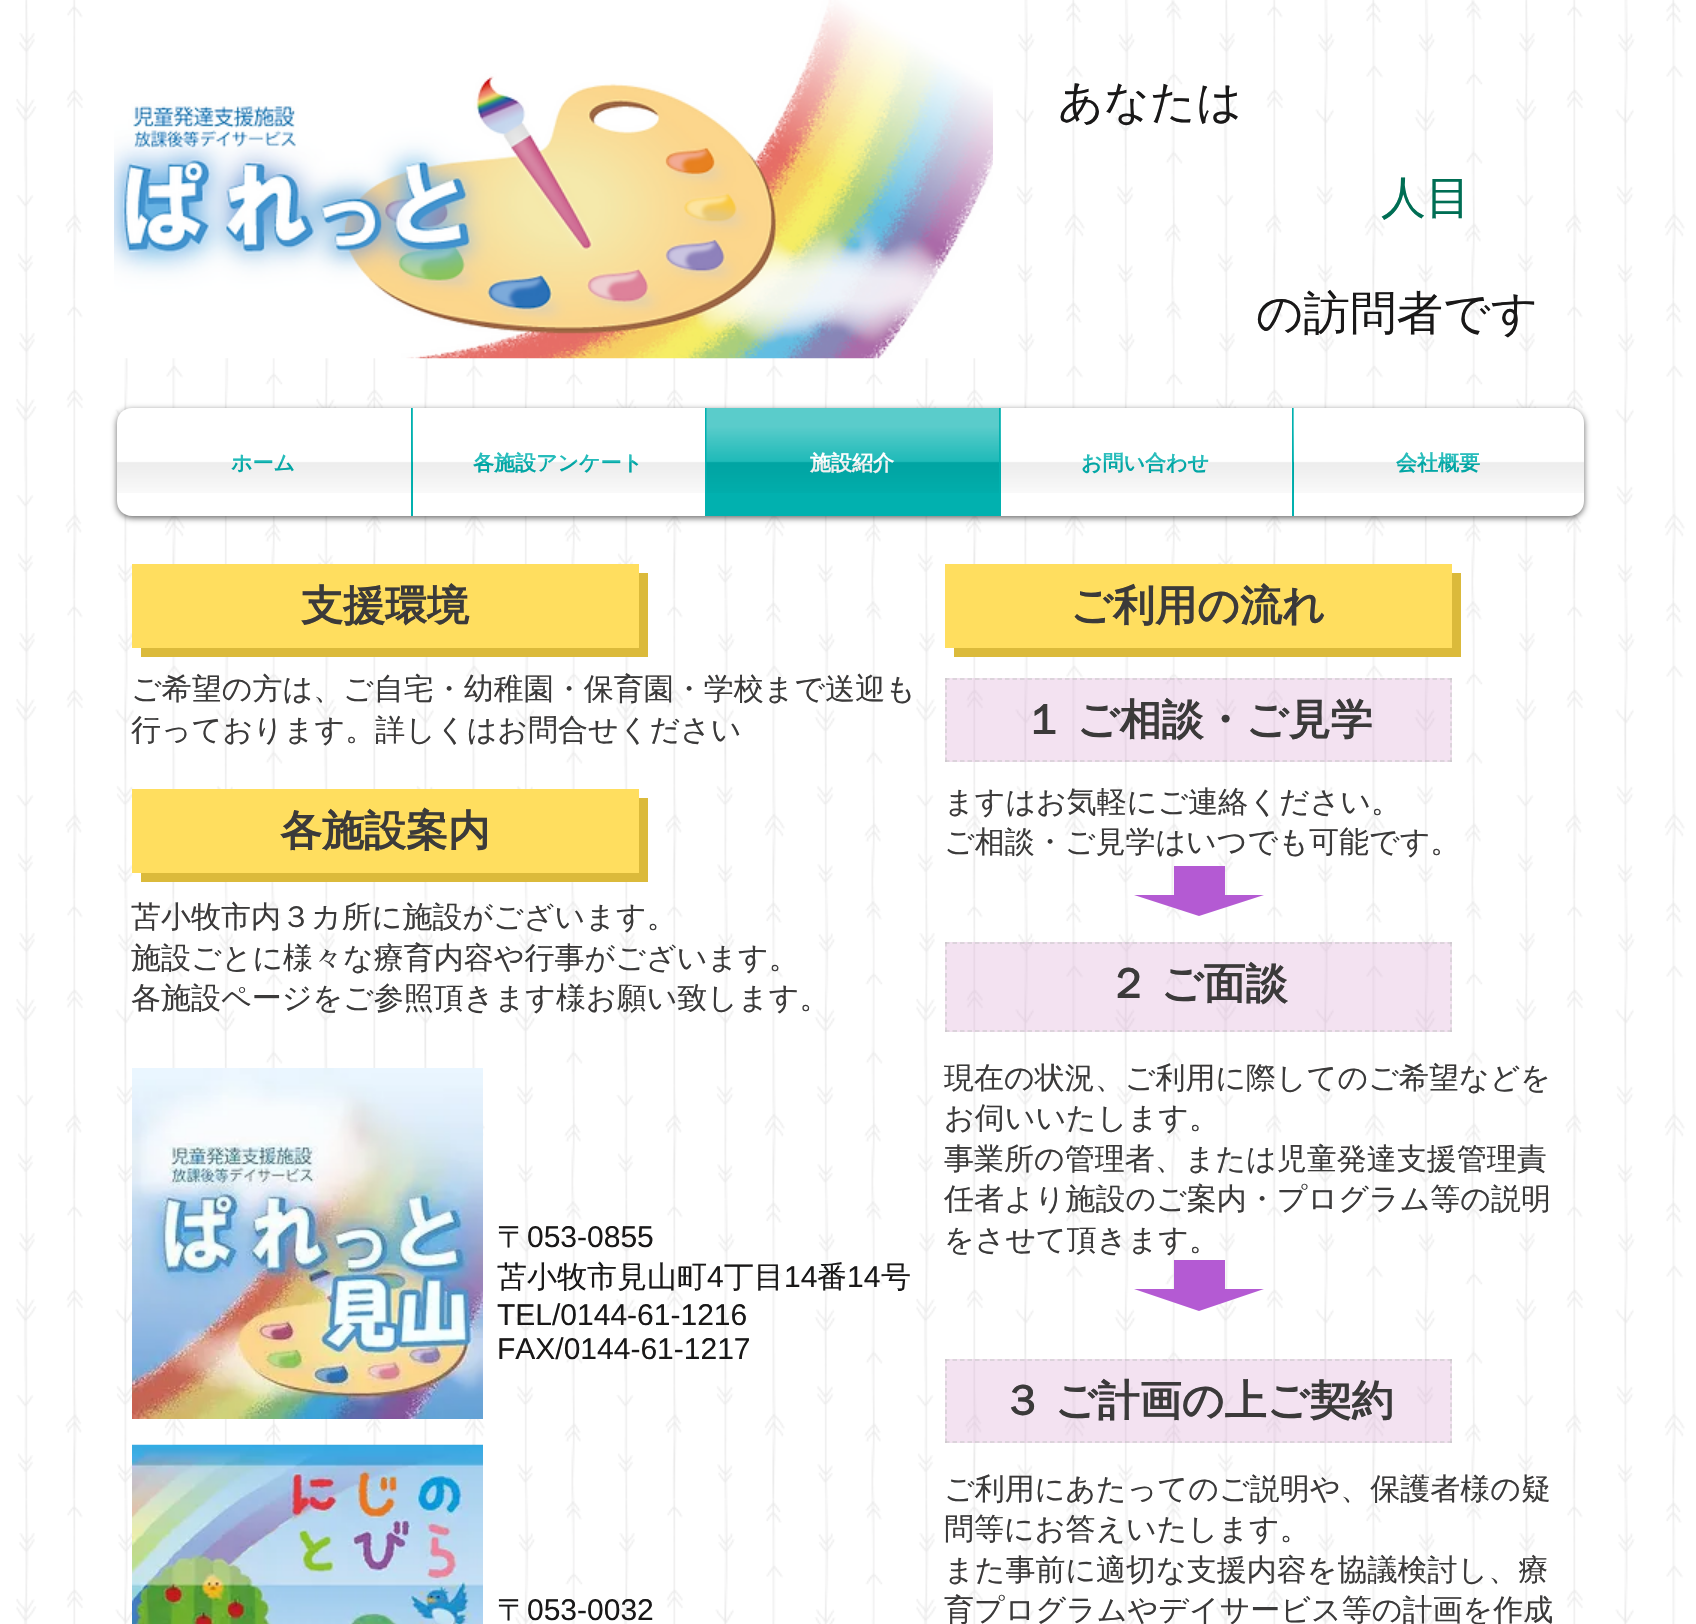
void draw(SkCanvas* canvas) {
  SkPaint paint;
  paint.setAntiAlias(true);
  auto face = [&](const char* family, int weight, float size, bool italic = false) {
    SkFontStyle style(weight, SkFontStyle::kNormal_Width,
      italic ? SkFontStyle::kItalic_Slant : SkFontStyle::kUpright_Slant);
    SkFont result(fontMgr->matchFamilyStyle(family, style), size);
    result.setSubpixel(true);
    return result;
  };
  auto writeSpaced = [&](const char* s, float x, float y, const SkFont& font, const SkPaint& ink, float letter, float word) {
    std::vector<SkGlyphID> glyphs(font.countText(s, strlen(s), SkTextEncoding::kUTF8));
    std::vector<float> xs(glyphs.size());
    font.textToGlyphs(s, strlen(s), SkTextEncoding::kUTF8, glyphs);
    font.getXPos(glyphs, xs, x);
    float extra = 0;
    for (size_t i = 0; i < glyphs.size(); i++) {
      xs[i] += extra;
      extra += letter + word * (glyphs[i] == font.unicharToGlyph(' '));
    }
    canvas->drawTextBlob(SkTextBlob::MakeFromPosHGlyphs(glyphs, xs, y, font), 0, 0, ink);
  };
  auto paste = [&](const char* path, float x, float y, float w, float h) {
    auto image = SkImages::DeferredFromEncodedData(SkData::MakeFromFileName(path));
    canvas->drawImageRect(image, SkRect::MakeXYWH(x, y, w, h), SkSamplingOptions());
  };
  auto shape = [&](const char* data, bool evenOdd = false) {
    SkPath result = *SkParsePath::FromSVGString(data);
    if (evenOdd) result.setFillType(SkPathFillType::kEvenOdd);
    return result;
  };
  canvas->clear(0xffffffff);
  paste("img/1.png", 16, 0, 1669, 1624);
  paste("img/2.png", 114, 0, 879, 359);
  paint.setColor(0x99000000);
  paint.setMaskFilter(SkMaskFilter::MakeBlur(kNormal_SkBlurStyle, 3));
  canvas->drawRoundRect(SkRect::MakeXYWH(117, 410, 1467, 108), 15, 15, paint);
  paint.setMaskFilter(nullptr);
  paint.setColor(0xffffffff);
  canvas->drawPath(shape("M132 408H411V516H132C123.5 516 117 509.5 117 501V423C117 414.5 123.5 408 132 408Z"), paint);
  {
    const struct { float x, y, w, h; SkColor color; } items[] = {
      {413, 408, 292, 108, 0xffffffff},
      {411, 408, 2, 108, 0xff01b1af},
      {705, 408, 296, 108, 0xff01b1af},
      {1001, 408, 291, 108, 0xffffffff},
    };
    for (auto [x, y, w, h, color] : items) {
      paint.setColor(color);
      canvas->drawRect(SkRect::MakeXYWH(x, y, w, h), paint);
    }
  }
  canvas->drawPath(shape("M1292 408H1569C1577.5 408 1584 414.5 1584 423V501C1584 509.5 1577.5 516 1569 516H1292Z"), paint);
  paint.setColor(0xff01b1af);
  canvas->drawRect(SkRect::MakeXYWH(1292, 408, 2, 108), paint);
  paint.setColor(0xffdbba3b);
  canvas->drawPath(shape("M141 648V657H648V573H639V648Z"), paint);
  paint.setColor(0xffffde5f);
  canvas->drawRect(SkRect::MakeXYWH(132, 564, 507, 84), paint);
  paint.setColor(0xffdbba3b);
  canvas->drawPath(shape("M954 648V657H1461V573H1452V648Z"), paint);
  paint.setColor(0xffffde5f);
  canvas->drawRect(SkRect::MakeXYWH(945, 564, 507, 84), paint);
  paint.setColor(0x4fd9a1d3);
  canvas->drawRect(SkRect::MakeXYWH(945, 678, 507, 84), paint);
  paint.setStroke(true);
  paint.setStrokeWidth(1.5f);
  paint.setColor(0x96c0c0c0);
  paint.setPathEffect(SkDashPathEffect::Make({{4.5f, 3}}, 0));
  canvas->drawPath(shape("M945 679H1452"), paint);
  paint.setPathEffect(nullptr);
  paint.setPathEffect(SkDashPathEffect::Make({{4.5f, 2.73f}}, 0));
  canvas->drawPath(shape("M1451 678V762"), paint);
  paint.setPathEffect(nullptr);
  paint.setPathEffect(SkDashPathEffect::Make({{4.5f, 3}}, 0));
  canvas->drawPath(shape("M945 761H1452"), paint);
  paint.setPathEffect(nullptr);
  paint.setPathEffect(SkDashPathEffect::Make({{4.5f, 2.73f}}, 0));
  canvas->drawPath(shape("M946 678V762"), paint);
  paint.setPathEffect(nullptr);
  paint.setStroke(false);
  paint.setColor(0xffdbba3b);
  canvas->drawPath(shape("M141 873V882H648V798H639V873Z"), paint);
  paint.setColor(0xffffde5f);
  canvas->drawRect(SkRect::MakeXYWH(132, 789, 507, 84), paint);
  paint.setColor(0xffb45ad3);
  canvas->drawPath(shape("M1199 916L1264 895H1225V866H1174V895H1134Z"), paint);
  paint.setColor(0x4fd9a1d3);
  canvas->drawRect(SkRect::MakeXYWH(945, 942, 507, 90), paint);
  paint.setStroke(true);
  paint.setColor(0x96c0c0c0);
  paint.setPathEffect(SkDashPathEffect::Make({{4.5f, 3}}, 0));
  canvas->drawPath(shape("M945 943H1452"), paint);
  paint.setPathEffect(nullptr);
  paint.setPathEffect(SkDashPathEffect::Make({{4.5f, 3.27f}}, 0));
  canvas->drawPath(shape("M1451 942V1032"), paint);
  paint.setPathEffect(nullptr);
  paint.setPathEffect(SkDashPathEffect::Make({{4.5f, 3}}, 0));
  canvas->drawPath(shape("M945 1031H1452"), paint);
  paint.setPathEffect(nullptr);
  paint.setPathEffect(SkDashPathEffect::Make({{4.5f, 3.27f}}, 0));
  canvas->drawPath(shape("M946 942V1032"), paint);
  paint.setPathEffect(nullptr);
  paste("img/8.png", 132, 1068, 351, 351);
  paint.setStroke(false);
  paint.setColor(0xffb45ad3);
  canvas->drawPath(shape("M1199 1311L1264 1289H1225V1260H1174V1289H1134Z"), paint);
  paint.setColor(0x4fd9a1d3);
  canvas->drawRect(SkRect::MakeXYWH(945, 1359, 507, 84), paint);
  paint.setStroke(true);
  paint.setColor(0x96c0c0c0);
  paint.setPathEffect(SkDashPathEffect::Make({{4.5f, 3}}, 0));
  canvas->drawPath(shape("M945 1360H1452"), paint);
  paint.setPathEffect(nullptr);
  paint.setPathEffect(SkDashPathEffect::Make({{4.5f, 2.73f}}, 0));
  canvas->drawPath(shape("M1451 1359V1443"), paint);
  paint.setPathEffect(nullptr);
  paint.setPathEffect(SkDashPathEffect::Make({{4.5f, 3}}, 0));
  canvas->drawPath(shape("M945 1442H1452"), paint);
  paint.setPathEffect(nullptr);
  paint.setPathEffect(SkDashPathEffect::Make({{4.5f, 2.73f}}, 0));
  canvas->drawPath(shape("M946 1359V1443"), paint);
  paint.setPathEffect(nullptr);
  paste("img/9.png", 132, 1444, 351, 180);
  auto f0 = face("WenQuanYi Zen Hei", 500, 45);
  paint.setStroke(false);
  paint.setColor(0xff191818);
  canvas->drawString("あなたは", 1058, 117, f0, paint);
  paint.setColor(0xff006e54);
  canvas->drawString("人目", 1381, 213, f0, paint);
  auto f1 = face("WenQuanYi Zen Hei", 500, 46.5f);
  paint.setColor(0xff191818);
  canvas->drawString("の訪問者です", 1256, 329, f1, paint);
  auto f2 = face("WenQuanYi Zen Hei", 700, 21);
  paint.setColor(0xff01b1af);
  canvas->drawString("ホーム", 231, 470, f2, paint);
  paste("img/3.png", 117, 455, 294, 38);
  canvas->drawString("各施設アンケート", 473, 470, f2, paint);
  paste("img/4.png", 412, 408, 293, 85);
  paint.setColor(0xffffffff);
  canvas->drawString("施設紹介", 810, 470, f2, paint);
  paste("img/5.png", 706, 408, 293, 85);
  paint.setColor(0xff01b1af);
  canvas->drawString("お問い合わせ", 1081, 470, f2, paint);
  paste("img/6.png", 1000, 408, 292, 85);
  canvas->drawString("会社概要", 1396, 470, f2, paint);
  paste("img/7.png", 1293, 408, 291, 85);
  auto f3 = face("WenQuanYi Zen Hei", 700, 42);
  paint.setColor(0xff3b3a3a);
  canvas->drawString("支援環境", 301, 620, f3, paint);
  canvas->drawString("ご利用の流れ", 1070, 620, f3, paint);
  auto f4 = face("WenQuanYi Zen Hei", 500, 30);
  canvas->drawString("ご希望の方は、ご自宅・幼稚園・保育園・学校まで送迎も", 131, 699, f4, paint);
  canvas->drawString("行っております。詳しくはお問合せください", 131, 740, f4, paint);
  writeSpaced("１ ご相談・ご見学", 1023, 734, f3, paint, 0, -1);
  canvas->drawString("各施設案内", 280, 845, f3, paint);
  {
    const struct { const char* s; float x, y; } items[] = {
      {"ますはお気軽にご連絡ください。", 944, 812},
      {"ご相談・ご見学はいつでも可能です。", 944, 852},
      {"苫小牧市内３カ所に施設がございます。", 131, 927},
      {"施設ごとに様々な療育内容や行事がございます。", 131, 968},
      {"各施設ページをご参照頂きます様お願い致します。", 131, 1008},
    };
    for (auto [s, x, y] : items) {
      canvas->drawString(s, x, y, f4, paint);
    }
  }
  writeSpaced("２ ご面談", 1107, 998, f3, paint, 0, -1);
  paint.setColor(0xff191818);
  canvas->drawString("〒", 497, 1247, f4, paint);
  auto f5 = face("Liberation Sans", 400, 30);
  canvas->drawString("053-0855", 527, 1247, f5, paint);
  canvas->drawString("苫小牧市見山町", 497, 1287, f4, paint);
  canvas->drawString("4", 707, 1287, f5, paint);
  canvas->drawString("丁目", 724, 1287, f4, paint);
  canvas->drawString("14", 784, 1287, f5, paint);
  canvas->drawString("番", 817, 1287, f4, paint);
  canvas->drawString("14", 847, 1287, f5, paint);
  canvas->drawString("号", 881, 1287, f4, paint);
  canvas->drawString("TEL/0144-61-1216", 497, 1325, f5, paint);
  canvas->drawString("FAX/0144-61-1217", 497, 1359, f5, paint);
  paint.setColor(0xff3b3a3a);
  {
    const struct { const char* s; float x, y; } items[] = {
      {"現在の状況、ご利用に際してのご希望などを", 944, 1088},
      {"お伺いいたします。", 944, 1128},
      {"事業所の管理者、または児童発達支援管理責", 944, 1169},
      {"任者より施設のご案内・プログラム等の説明", 944, 1209},
      {"をさせて頂きます。", 944, 1250},
    };
    for (auto [s, x, y] : items) {
      canvas->drawString(s, x, y, f4, paint);
    }
  }
  writeSpaced("３ ご計画の上ご契約", 1001, 1415, f3, paint, 0, -1);
  paint.setColor(0xff191818);
  canvas->drawString("〒", 497, 1620, f4, paint);
  canvas->drawString("053-0032", 527, 1620, f5, paint);
  paint.setColor(0xff3b3a3a);
  {
    const struct { const char* s; float x, y; } items[] = {
      {"ご利用にあたってのご説明や、保護者様の疑", 944, 1499},
      {"問等にお答えいたします。", 944, 1539},
      {"また事前に適切な支援内容を協議検討し、療", 944, 1580},
      {"育プログラムやデイサービス等の計画を作成", 944, 1620},
    };
    for (auto [s, x, y] : items) {
      canvas->drawString(s, x, y, f4, paint);
    }
  }
}
